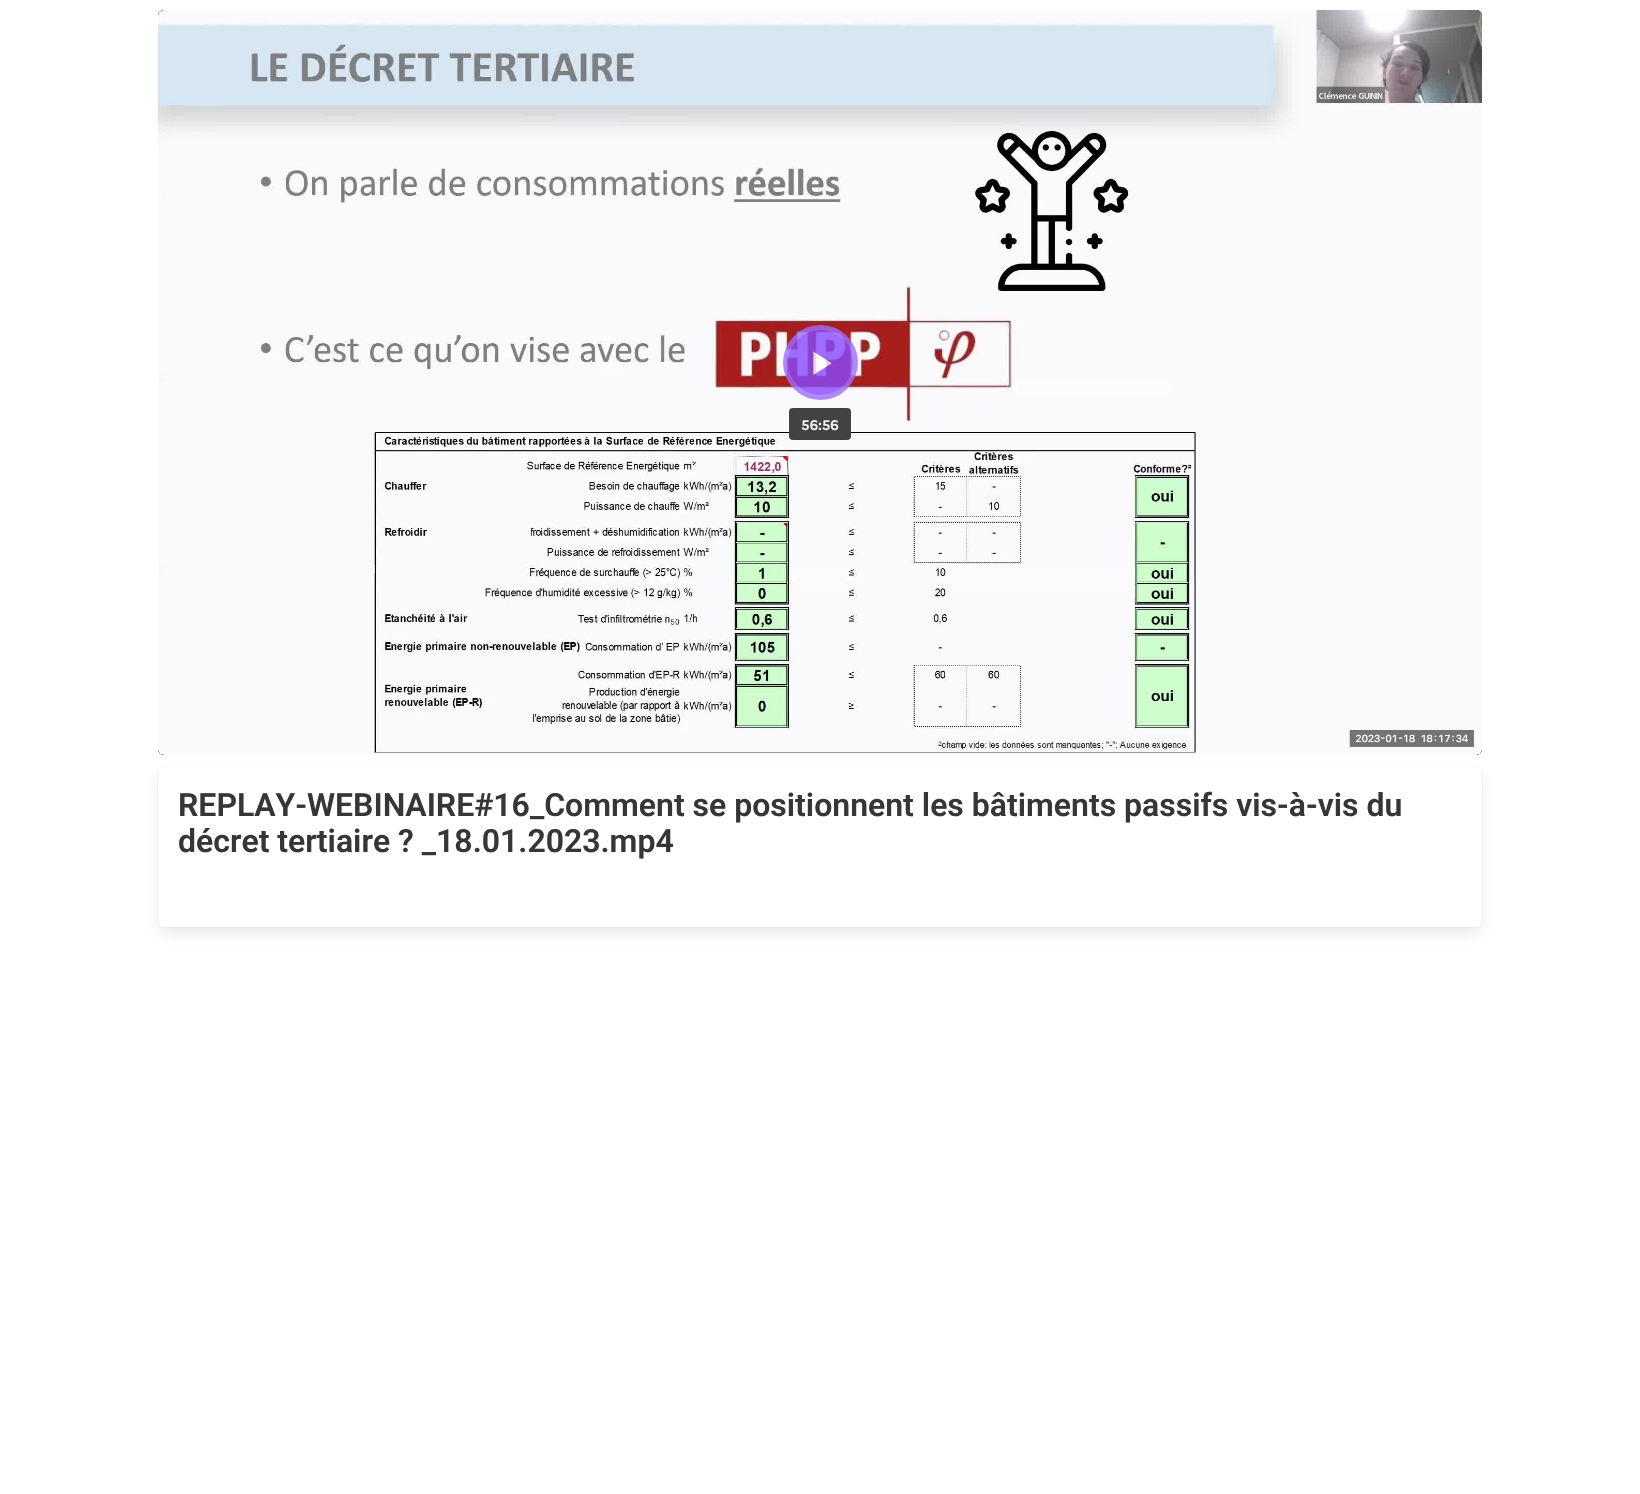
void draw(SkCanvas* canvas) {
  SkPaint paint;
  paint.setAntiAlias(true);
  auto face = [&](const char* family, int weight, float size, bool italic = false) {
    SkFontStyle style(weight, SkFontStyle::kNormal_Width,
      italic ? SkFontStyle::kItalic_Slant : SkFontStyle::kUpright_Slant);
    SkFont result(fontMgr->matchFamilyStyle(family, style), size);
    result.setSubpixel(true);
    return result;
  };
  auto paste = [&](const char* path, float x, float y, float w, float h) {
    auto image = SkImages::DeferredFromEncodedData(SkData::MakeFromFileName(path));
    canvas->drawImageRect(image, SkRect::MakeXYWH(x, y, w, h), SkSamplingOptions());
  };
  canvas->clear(0xffffffff);
  paint.setStroke(true);
  paint.setStrokeWidth(1);
  paint.setColor(0xfffafafa);
  canvas->drawRoundRect(SkRect::MakeXYWH(157.5f, 766.5f, 1325, 161), 6.5f, 6.5f, paint);
  paint.setStroke(false);
  paint.setColor(0x1a0a0a0a);
  paint.setMaskFilter(SkMaskFilter::MakeBlur(kNormal_SkBlurStyle, 8));
  canvas->drawRoundRect(SkRect::MakeXYWH(160, 777, 1320, 156), 4, 4, paint);
  paint.setMaskFilter(nullptr);
  paste("img/1.png", 158, 10, 1324, 745);
  paint.setColor(0xffffffff);
  canvas->drawRoundRect(SkRect::MakeXYWH(158, 767, 1324, 160), 6, 6, paint);
  auto f0 = face("Roboto", 600, 32);
  paint.setColor(0xff363636);
  canvas->drawString("REPLAY-WEBINAIRE#16_Comment se positionnent les bâtiments passifs vis-à-vis du", 178, 816, f0, paint);
  canvas->drawString("décret tertiaire ? _18.01.2023.mp4", 178, 852, f0, paint);
}
